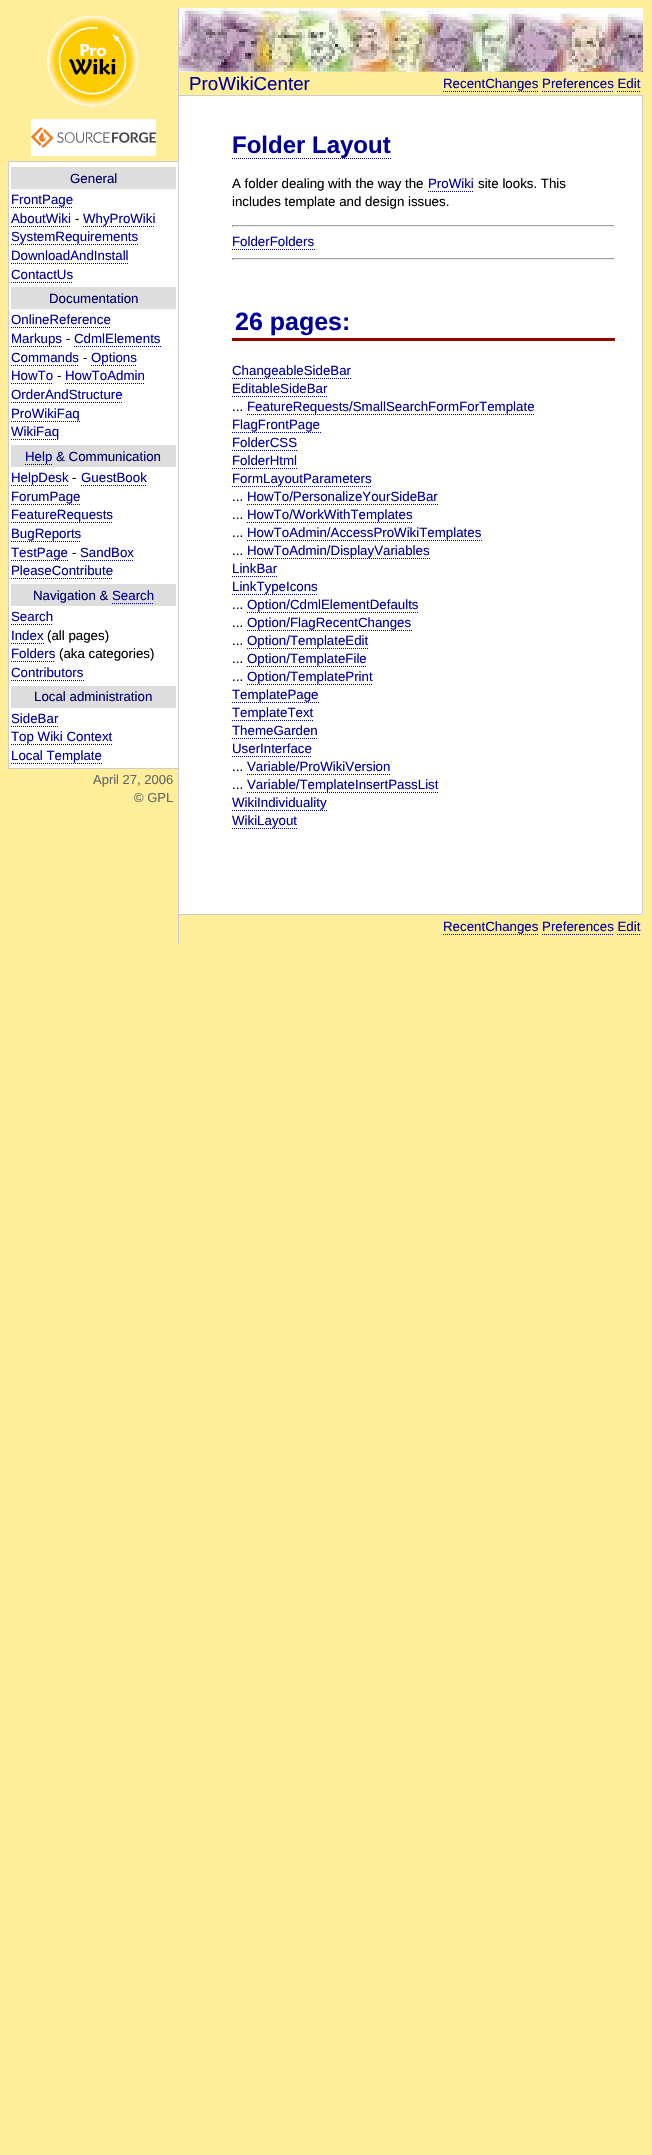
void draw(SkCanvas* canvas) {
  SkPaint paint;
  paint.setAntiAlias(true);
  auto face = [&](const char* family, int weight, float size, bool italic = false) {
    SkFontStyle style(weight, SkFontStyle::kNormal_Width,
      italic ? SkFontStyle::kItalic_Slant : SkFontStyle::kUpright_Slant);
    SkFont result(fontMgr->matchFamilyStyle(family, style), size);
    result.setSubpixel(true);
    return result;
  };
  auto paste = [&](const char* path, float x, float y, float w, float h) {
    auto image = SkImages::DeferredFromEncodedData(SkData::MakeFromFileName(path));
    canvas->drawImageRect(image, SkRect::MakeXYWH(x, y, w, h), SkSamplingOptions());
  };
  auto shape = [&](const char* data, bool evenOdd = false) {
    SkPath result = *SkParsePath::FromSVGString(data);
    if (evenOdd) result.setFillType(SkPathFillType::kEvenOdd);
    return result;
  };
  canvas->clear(0xffffee99);
  paste("img/1.png", 47, 16, 91, 91);
  paste("img/2.png", 31, 119, 125, 37);
  {
    const struct { float x, y, w, h; SkColor color; } items[] = {
      {9, 162, 169, 606, 0xffffffff},
      {8, 161, 170, 1, 0xffcccccc},
      {8, 768, 170, 1, 0xffcccccc},
      {8, 161, 1, 608, 0xffcccccc},
      {11, 167, 165, 22, 0xffdddddd},
    };
    for (auto [x, y, w, h, color] : items) {
      paint.setColor(color);
      canvas->drawRect(SkRect::MakeXYWH(x, y, w, h), paint);
    }
  }
  paint.setStroke(true);
  paint.setStrokeWidth(1);
  paint.setColor(0xff000099);
  paint.setPathEffect(SkDashPathEffect::Make({{1, 1}}, 0));
  canvas->drawPath(shape("M11 207.5H73"), paint);
  paint.setPathEffect(nullptr);
  paint.setPathEffect(SkDashPathEffect::Make({{1, 1}}, 0));
  canvas->drawPath(shape("M11 226.5H71"), paint);
  paint.setPathEffect(nullptr);
  paint.setPathEffect(SkDashPathEffect::Make({{1, 1}}, 0));
  canvas->drawPath(shape("M83 226.5H155"), paint);
  paint.setPathEffect(nullptr);
  paint.setPathEffect(SkDashPathEffect::Make({{1, 1}}, 0));
  canvas->drawPath(shape("M11 244.5H138"), paint);
  paint.setPathEffect(nullptr);
  paint.setPathEffect(SkDashPathEffect::Make({{1, 1}}, 0));
  canvas->drawPath(shape("M11 263.5H129"), paint);
  paint.setPathEffect(nullptr);
  paint.setPathEffect(SkDashPathEffect::Make({{1, 1}}, 0));
  canvas->drawPath(shape("M11 282.5H73"), paint);
  paint.setPathEffect(nullptr);
  paint.setStroke(false);
  paint.setColor(0xffdddddd);
  canvas->drawRect(SkRect::MakeXYWH(11, 287, 165, 22), paint);
  paint.setStroke(true);
  paint.setColor(0xff000099);
  paint.setPathEffect(SkDashPathEffect::Make({{1, 1}}, 0));
  canvas->drawPath(shape("M11 327.5H111"), paint);
  paint.setPathEffect(nullptr);
  paint.setPathEffect(SkDashPathEffect::Make({{1, 1}}, 0));
  canvas->drawPath(shape("M11 346.5H62"), paint);
  paint.setPathEffect(nullptr);
  paint.setPathEffect(SkDashPathEffect::Make({{1, 1}}, 0));
  canvas->drawPath(shape("M74 346.5H161"), paint);
  paint.setPathEffect(nullptr);
  paint.setPathEffect(SkDashPathEffect::Make({{1, 1}}, 0));
  canvas->drawPath(shape("M11 365.5H79"), paint);
  paint.setPathEffect(nullptr);
  paint.setPathEffect(SkDashPathEffect::Make({{1, 1}}, 0));
  canvas->drawPath(shape("M91 365.5H137"), paint);
  paint.setPathEffect(nullptr);
  paint.setPathEffect(SkDashPathEffect::Make({{1, 1}}, 0));
  canvas->drawPath(shape("M11 383.5H53"), paint);
  paint.setPathEffect(nullptr);
  paint.setPathEffect(SkDashPathEffect::Make({{1, 1}}, 0));
  canvas->drawPath(shape("M65 383.5H145"), paint);
  paint.setPathEffect(nullptr);
  paint.setPathEffect(SkDashPathEffect::Make({{1, 1}}, 0));
  canvas->drawPath(shape("M11 402.5H123"), paint);
  paint.setPathEffect(nullptr);
  paint.setPathEffect(SkDashPathEffect::Make({{1, 1}}, 0));
  canvas->drawPath(shape("M11 421.5H80"), paint);
  paint.setPathEffect(nullptr);
  paint.setPathEffect(SkDashPathEffect::Make({{1, 1}}, 0));
  canvas->drawPath(shape("M11 439.5H59"), paint);
  paint.setPathEffect(nullptr);
  paint.setStroke(false);
  paint.setColor(0xffdddddd);
  canvas->drawRect(SkRect::MakeXYWH(11, 445, 165, 22), paint);
  paint.setStroke(true);
  paint.setColor(0xff000099);
  paint.setPathEffect(SkDashPathEffect::Make({{1, 1}}, 0));
  canvas->drawPath(shape("M25 464.5H53"), paint);
  paint.setPathEffect(nullptr);
  paint.setPathEffect(SkDashPathEffect::Make({{1, 1}}, 0));
  canvas->drawPath(shape("M11 485.5H69"), paint);
  paint.setPathEffect(nullptr);
  paint.setPathEffect(SkDashPathEffect::Make({{1, 1}}, 0));
  canvas->drawPath(shape("M81 485.5H147"), paint);
  paint.setPathEffect(nullptr);
  paint.setPathEffect(SkDashPathEffect::Make({{1, 1}}, 0));
  canvas->drawPath(shape("M11 504.5H81"), paint);
  paint.setPathEffect(nullptr);
  paint.setPathEffect(SkDashPathEffect::Make({{1, 1}}, 0));
  canvas->drawPath(shape("M11 522.5H113"), paint);
  paint.setPathEffect(nullptr);
  paint.setPathEffect(SkDashPathEffect::Make({{1, 1}}, 0));
  canvas->drawPath(shape("M11 541.5H81"), paint);
  paint.setPathEffect(nullptr);
  paint.setPathEffect(SkDashPathEffect::Make({{1, 1}}, 0));
  canvas->drawPath(shape("M11 560.5H68"), paint);
  paint.setPathEffect(nullptr);
  paint.setPathEffect(SkDashPathEffect::Make({{1, 1}}, 0));
  canvas->drawPath(shape("M80 560.5H134"), paint);
  paint.setPathEffect(nullptr);
  paint.setPathEffect(SkDashPathEffect::Make({{1, 1}}, 0));
  canvas->drawPath(shape("M11 578.5H113"), paint);
  paint.setPathEffect(nullptr);
  paint.setStroke(false);
  paint.setColor(0xffdddddd);
  canvas->drawRect(SkRect::MakeXYWH(11, 584, 165, 22), paint);
  paint.setStroke(true);
  paint.setColor(0xff000099);
  paint.setPathEffect(SkDashPathEffect::Make({{1, 1}}, 0));
  canvas->drawPath(shape("M112 603.5H154"), paint);
  paint.setPathEffect(nullptr);
  paint.setPathEffect(SkDashPathEffect::Make({{1, 1}}, 0));
  canvas->drawPath(shape("M11 624.5H53"), paint);
  paint.setPathEffect(nullptr);
  paint.setPathEffect(SkDashPathEffect::Make({{1, 1}}, 0));
  canvas->drawPath(shape("M11 643.5H44"), paint);
  paint.setPathEffect(nullptr);
  paint.setPathEffect(SkDashPathEffect::Make({{1, 1}}, 0));
  canvas->drawPath(shape("M11 661.5H55"), paint);
  paint.setPathEffect(nullptr);
  paint.setPathEffect(SkDashPathEffect::Make({{1, 1}}, 0));
  canvas->drawPath(shape("M11 680.5H84"), paint);
  paint.setPathEffect(nullptr);
  paint.setStroke(false);
  paint.setColor(0xffdddddd);
  canvas->drawRect(SkRect::MakeXYWH(11, 686, 165, 22), paint);
  paint.setStroke(true);
  paint.setColor(0xff000099);
  paint.setPathEffect(SkDashPathEffect::Make({{1, 1}}, 0));
  canvas->drawPath(shape("M11 726.5H58"), paint);
  paint.setPathEffect(nullptr);
  paint.setPathEffect(SkDashPathEffect::Make({{1, 1}}, 0));
  canvas->drawPath(shape("M11 744.5H112"), paint);
  paint.setPathEffect(nullptr);
  paint.setPathEffect(SkDashPathEffect::Make({{1, 1}}, 0));
  canvas->drawPath(shape("M11 763.5H102"), paint);
  paint.setPathEffect(nullptr);
  paint.setStroke(false);
  paint.setColor(0xffcccccc);
  canvas->drawRect(SkRect::MakeXYWH(178, 8, 1, 936), paint);
  paste("img/3.png", 179, 8, 464, 64);
  paint.setStroke(true);
  paint.setColor(0xff000099);
  paint.setPathEffect(SkDashPathEffect::Make({{1, 1}}, 0));
  canvas->drawPath(shape("M443 91.5H538"), paint);
  paint.setPathEffect(nullptr);
  paint.setPathEffect(SkDashPathEffect::Make({{1, 1}}, 0));
  canvas->drawPath(shape("M542 91.5H614"), paint);
  paint.setPathEffect(nullptr);
  paint.setPathEffect(SkDashPathEffect::Make({{1, 1}}, 0));
  canvas->drawPath(shape("M617 91.5H640"), paint);
  paint.setPathEffect(nullptr);
  paint.setStroke(false);
  {
    const struct { float x, y, w, h; SkColor color; } items[] = {
      {179, 96, 463, 818, 0xffffffff},
      {179, 95, 464, 1, 0xffcccccc},
      {642, 95, 1, 820, 0xffcccccc},
      {179, 914, 464, 1, 0xffcccccc},
    };
    for (auto [x, y, w, h, color] : items) {
      paint.setColor(color);
      canvas->drawRect(SkRect::MakeXYWH(x, y, w, h), paint);
    }
  }
  paint.setStroke(true);
  paint.setColor(0xff000099);
  paint.setPathEffect(SkDashPathEffect::Make({{1, 1}}, 0));
  canvas->drawPath(shape("M232 158.5H391"), paint);
  paint.setPathEffect(nullptr);
  paint.setPathEffect(SkDashPathEffect::Make({{1, 1}}, 0));
  canvas->drawPath(shape("M428 191.5H474"), paint);
  paint.setPathEffect(nullptr);
  paint.setStroke(false);
  {
    const struct { float x, y, w, h; SkColor color; } items[] = {
      {232, 225, 383, 1, 0xff9f9f9f},
      {614, 225, 1, 2, 0xffeeeeee},
      {232, 226, 383, 1, 0xffeeeeee},
      {232, 225, 1, 2, 0xff9f9f9f},
    };
    for (auto [x, y, w, h, color] : items) {
      paint.setColor(color);
      canvas->drawRect(SkRect::MakeXYWH(x, y, w, h), paint);
    }
  }
  paint.setStroke(true);
  paint.setColor(0xff000099);
  paint.setPathEffect(SkDashPathEffect::Make({{1, 1}}, 0));
  canvas->drawPath(shape("M232 249.5H315"), paint);
  paint.setPathEffect(nullptr);
  paint.setStroke(false);
  {
    const struct { float x, y, w, h; SkColor color; } items[] = {
      {232, 258, 383, 1, 0xff9f9f9f},
      {614, 258, 1, 2, 0xffeeeeee},
      {232, 259, 383, 1, 0xffeeeeee},
      {232, 258, 1, 2, 0xff9f9f9f},
      {232, 338, 383, 3, 0xff990000},
    };
    for (auto [x, y, w, h, color] : items) {
      paint.setColor(color);
      canvas->drawRect(SkRect::MakeXYWH(x, y, w, h), paint);
    }
  }
  paint.setStroke(true);
  paint.setColor(0xff000099);
  paint.setPathEffect(SkDashPathEffect::Make({{1, 1}}, 0));
  canvas->drawPath(shape("M232 378.5H352"), paint);
  paint.setPathEffect(nullptr);
  paint.setPathEffect(SkDashPathEffect::Make({{1, 1}}, 0));
  canvas->drawPath(shape("M232 396.5H328"), paint);
  paint.setPathEffect(nullptr);
  paint.setPathEffect(SkDashPathEffect::Make({{1, 1}}, 0));
  canvas->drawPath(shape("M247 414.5H535"), paint);
  paint.setPathEffect(nullptr);
  paint.setPathEffect(SkDashPathEffect::Make({{1, 1}}, 0));
  canvas->drawPath(shape("M232 432.5H321"), paint);
  paint.setPathEffect(nullptr);
  paint.setPathEffect(SkDashPathEffect::Make({{1, 1}}, 0));
  canvas->drawPath(shape("M232 450.5H298"), paint);
  paint.setPathEffect(nullptr);
  paint.setPathEffect(SkDashPathEffect::Make({{1, 1}}, 0));
  canvas->drawPath(shape("M232 468.5H298"), paint);
  paint.setPathEffect(nullptr);
  paint.setPathEffect(SkDashPathEffect::Make({{1, 1}}, 0));
  canvas->drawPath(shape("M232 486.5H372"), paint);
  paint.setPathEffect(nullptr);
  paint.setPathEffect(SkDashPathEffect::Make({{1, 1}}, 0));
  canvas->drawPath(shape("M247 504.5H438"), paint);
  paint.setPathEffect(nullptr);
  paint.setPathEffect(SkDashPathEffect::Make({{1, 1}}, 0));
  canvas->drawPath(shape("M247 522.5H413"), paint);
  paint.setPathEffect(nullptr);
  paint.setPathEffect(SkDashPathEffect::Make({{1, 1}}, 0));
  canvas->drawPath(shape("M247 540.5H482"), paint);
  paint.setPathEffect(nullptr);
  paint.setPathEffect(SkDashPathEffect::Make({{1, 1}}, 0));
  canvas->drawPath(shape("M247 558.5H430"), paint);
  paint.setPathEffect(nullptr);
  paint.setPathEffect(SkDashPathEffect::Make({{1, 1}}, 0));
  canvas->drawPath(shape("M232 576.5H278"), paint);
  paint.setPathEffect(nullptr);
  paint.setPathEffect(SkDashPathEffect::Make({{1, 1}}, 0));
  canvas->drawPath(shape("M232 594.5H318"), paint);
  paint.setPathEffect(nullptr);
  paint.setPathEffect(SkDashPathEffect::Make({{1, 1}}, 0));
  canvas->drawPath(shape("M247 612.5H419"), paint);
  paint.setPathEffect(nullptr);
  paint.setPathEffect(SkDashPathEffect::Make({{1, 1}}, 0));
  canvas->drawPath(shape("M247 630.5H412"), paint);
  paint.setPathEffect(nullptr);
  paint.setPathEffect(SkDashPathEffect::Make({{1, 1}}, 0));
  canvas->drawPath(shape("M247 648.5H369"), paint);
  paint.setPathEffect(nullptr);
  paint.setPathEffect(SkDashPathEffect::Make({{1, 1}}, 0));
  canvas->drawPath(shape("M247 666.5H367"), paint);
  paint.setPathEffect(nullptr);
  paint.setPathEffect(SkDashPathEffect::Make({{1, 1}}, 0));
  canvas->drawPath(shape("M247 684.5H373"), paint);
  paint.setPathEffect(nullptr);
  paint.setPathEffect(SkDashPathEffect::Make({{1, 1}}, 0));
  canvas->drawPath(shape("M232 702.5H319"), paint);
  paint.setPathEffect(nullptr);
  paint.setPathEffect(SkDashPathEffect::Make({{1, 1}}, 0));
  canvas->drawPath(shape("M232 720.5H314"), paint);
  paint.setPathEffect(nullptr);
  paint.setPathEffect(SkDashPathEffect::Make({{1, 1}}, 0));
  canvas->drawPath(shape("M232 738.5H318"), paint);
  paint.setPathEffect(nullptr);
  paint.setPathEffect(SkDashPathEffect::Make({{1, 1}}, 0));
  canvas->drawPath(shape("M232 756.5H312"), paint);
  paint.setPathEffect(nullptr);
  paint.setPathEffect(SkDashPathEffect::Make({{1, 1}}, 0));
  canvas->drawPath(shape("M247 774.5H391"), paint);
  paint.setPathEffect(nullptr);
  paint.setPathEffect(SkDashPathEffect::Make({{1, 1}}, 0));
  canvas->drawPath(shape("M247 792.5H439"), paint);
  paint.setPathEffect(nullptr);
  paint.setPathEffect(SkDashPathEffect::Make({{1, 1}}, 0));
  canvas->drawPath(shape("M232 810.5H327"), paint);
  paint.setPathEffect(nullptr);
  paint.setPathEffect(SkDashPathEffect::Make({{1, 1}}, 0));
  canvas->drawPath(shape("M232 828.5H298"), paint);
  paint.setPathEffect(nullptr);
  paint.setPathEffect(SkDashPathEffect::Make({{1, 1}}, 0));
  canvas->drawPath(shape("M443 934.5H538"), paint);
  paint.setPathEffect(nullptr);
  paint.setPathEffect(SkDashPathEffect::Make({{1, 1}}, 0));
  canvas->drawPath(shape("M542 934.5H614"), paint);
  paint.setPathEffect(nullptr);
  paint.setPathEffect(SkDashPathEffect::Make({{1, 1}}, 0));
  canvas->drawPath(shape("M617 934.5H640"), paint);
  paint.setPathEffect(nullptr);
  auto f0 = face("Liberation Sans", 400, 13.3f);
  paint.setStroke(false);
  paint.setColor(0xff000066);
  canvas->drawString("General", 70, 183, f0, paint);
  paint.setColor(0xff000099);
  canvas->drawString("FrontPage", 11, 204, f0, paint);
  canvas->drawString("AboutWiki", 11, 223, f0, paint);
  paint.setColor(0xff000000);
  canvas->drawString("-", 75, 223, f0, paint);
  paint.setColor(0xff000099);
  {
    const struct { const char* s; float x, y; } items[] = {
      {"WhyProWiki", 83, 223},
      {"SystemRequirements", 11, 241},
      {"DownloadAndInstall", 11, 260},
      {"ContactUs", 11, 279},
    };
    for (auto [s, x, y] : items) {
      canvas->drawString(s, x, y, f0, paint);
    }
  }
  paint.setColor(0xff000066);
  canvas->drawString("Documentation", 49, 303, f0, paint);
  paint.setColor(0xff000099);
  canvas->drawString("OnlineReference", 11, 324, f0, paint);
  canvas->drawString("Markups", 11, 343, f0, paint);
  paint.setColor(0xff000000);
  canvas->drawString("-", 66, 343, f0, paint);
  paint.setColor(0xff000099);
  canvas->drawString("CdmlElements", 74, 343, f0, paint);
  canvas->drawString("Commands", 11, 362, f0, paint);
  paint.setColor(0xff000000);
  canvas->drawString("-", 83, 362, f0, paint);
  paint.setColor(0xff000099);
  canvas->drawString("Options", 91, 362, f0, paint);
  canvas->drawString("HowTo", 11, 380, f0, paint);
  paint.setColor(0xff000000);
  canvas->drawString("-", 57, 380, f0, paint);
  paint.setColor(0xff000099);
  {
    const struct { const char* s; float x, y; } items[] = {
      {"HowToAdmin", 65, 380},
      {"OrderAndStructure", 11, 399},
      {"ProWikiFaq", 11, 418},
      {"WikiFaq", 11, 436},
      {"Help", 25, 461},
    };
    for (auto [s, x, y] : items) {
      canvas->drawString(s, x, y, f0, paint);
    }
  }
  paint.setColor(0xff000066);
  canvas->drawString("& Communication", 56, 461, f0, paint);
  paint.setColor(0xff000099);
  canvas->drawString("HelpDesk", 11, 482, f0, paint);
  paint.setColor(0xff000000);
  canvas->drawString("-", 72, 482, f0, paint);
  paint.setColor(0xff000099);
  {
    const struct { const char* s; float x, y; } items[] = {
      {"GuestBook", 81, 482},
      {"ForumPage", 11, 501},
      {"FeatureRequests", 11, 519},
      {"BugReports", 11, 538},
      {"TestPage", 11, 557},
    };
    for (auto [s, x, y] : items) {
      canvas->drawString(s, x, y, f0, paint);
    }
  }
  paint.setColor(0xff000000);
  canvas->drawString("-", 72, 557, f0, paint);
  paint.setColor(0xff000099);
  canvas->drawString("SandBox", 80, 557, f0, paint);
  canvas->drawString("PleaseContribute", 11, 575, f0, paint);
  paint.setColor(0xff000066);
  canvas->drawString("Navigation &", 33, 600, f0, paint);
  paint.setColor(0xff000099);
  {
    const struct { const char* s; float x, y; } items[] = {
      {"Search", 112, 600},
      {"Search", 11, 621},
      {"Index", 11, 640},
    };
    for (auto [s, x, y] : items) {
      canvas->drawString(s, x, y, f0, paint);
    }
  }
  paint.setColor(0xff000000);
  canvas->drawString("(all pages)", 47, 640, f0, paint);
  paint.setColor(0xff000099);
  canvas->drawString("Folders", 11, 658, f0, paint);
  paint.setColor(0xff000000);
  canvas->drawString("(aka categories)", 59, 658, f0, paint);
  paint.setColor(0xff000099);
  canvas->drawString("Contributors", 11, 677, f0, paint);
  paint.setColor(0xff000066);
  canvas->drawString("Local administration", 34, 701, f0, paint);
  paint.setColor(0xff000099);
  {
    const struct { const char* s; float x, y; } items[] = {
      {"SideBar", 11, 723},
      {"Top Wiki Context", 11, 741},
      {"Local Template", 11, 760},
    };
    for (auto [s, x, y] : items) {
      canvas->drawString(s, x, y, f0, paint);
    }
  }
  auto f1 = face("Liberation Sans", 400, 13);
  paint.setColor(0xff666666);
  canvas->drawString("April 27, 2006", 93, 784, f1, paint);
  canvas->drawString("© GPL", 134, 802, f1, paint);
  auto f2 = face("Liberation Sans", 400, 18.75f);
  paint.setColor(0xff000099);
  canvas->drawString("ProWikiCenter", 189, 90, f2, paint);
  canvas->drawString("RecentChanges Preferences Edit", 443, 88, f0, paint);
  auto f3 = face("Liberation Sans", 700, 24);
  canvas->drawString("Folder Layout", 232, 153, f3, paint);
  paint.setColor(0xff000000);
  canvas->drawString("A folder dealing with the way the", 232, 188, f0, paint);
  paint.setColor(0xff000099);
  canvas->drawString("ProWiki", 428, 188, f0, paint);
  paint.setColor(0xff000000);
  canvas->drawString("site looks. This", 478, 188, f0, paint);
  canvas->drawString("includes template and design issues.", 232, 206, f0, paint);
  paint.setColor(0xff000099);
  canvas->drawString("FolderFolders", 232, 246, f0, paint);
  auto f4 = face("Liberation Sans", 700, 25);
  canvas->drawString("26 pages:", 235, 330, f4, paint);
  canvas->drawString("ChangeableSideBar", 232, 375, f0, paint);
  canvas->drawString("EditableSideBar", 232, 393, f0, paint);
  paint.setColor(0xff000000);
  canvas->drawString("...", 232, 411, f0, paint);
  paint.setColor(0xff000099);
  {
    const struct { const char* s; float x, y; } items[] = {
      {"FeatureRequests/SmallSearchFormForTemplate", 247, 411},
      {"FlagFrontPage", 232, 429},
      {"FolderCSS", 232, 447},
      {"FolderHtml", 232, 465},
      {"FormLayoutParameters", 232, 483},
    };
    for (auto [s, x, y] : items) {
      canvas->drawString(s, x, y, f0, paint);
    }
  }
  paint.setColor(0xff000000);
  canvas->drawString("...", 232, 501, f0, paint);
  paint.setColor(0xff000099);
  canvas->drawString("HowTo/PersonalizeYourSideBar", 247, 501, f0, paint);
  paint.setColor(0xff000000);
  canvas->drawString("...", 232, 519, f0, paint);
  paint.setColor(0xff000099);
  canvas->drawString("HowTo/WorkWithTemplates", 247, 519, f0, paint);
  paint.setColor(0xff000000);
  canvas->drawString("...", 232, 537, f0, paint);
  paint.setColor(0xff000099);
  canvas->drawString("HowToAdmin/AccessProWikiTemplates", 247, 537, f0, paint);
  paint.setColor(0xff000000);
  canvas->drawString("...", 232, 555, f0, paint);
  paint.setColor(0xff000099);
  {
    const struct { const char* s; float x, y; } items[] = {
      {"HowToAdmin/DisplayVariables", 247, 555},
      {"LinkBar", 232, 573},
      {"LinkTypeIcons", 232, 591},
    };
    for (auto [s, x, y] : items) {
      canvas->drawString(s, x, y, f0, paint);
    }
  }
  paint.setColor(0xff000000);
  canvas->drawString("...", 232, 609, f0, paint);
  paint.setColor(0xff000099);
  canvas->drawString("Option/CdmlElementDefaults", 247, 609, f0, paint);
  paint.setColor(0xff000000);
  canvas->drawString("...", 232, 627, f0, paint);
  paint.setColor(0xff000099);
  canvas->drawString("Option/FlagRecentChanges", 247, 627, f0, paint);
  paint.setColor(0xff000000);
  canvas->drawString("...", 232, 645, f0, paint);
  paint.setColor(0xff000099);
  canvas->drawString("Option/TemplateEdit", 247, 645, f0, paint);
  paint.setColor(0xff000000);
  canvas->drawString("...", 232, 663, f0, paint);
  paint.setColor(0xff000099);
  canvas->drawString("Option/TemplateFile", 247, 663, f0, paint);
  paint.setColor(0xff000000);
  canvas->drawString("...", 232, 681, f0, paint);
  paint.setColor(0xff000099);
  {
    const struct { const char* s; float x, y; } items[] = {
      {"Option/TemplatePrint", 247, 681},
      {"TemplatePage", 232, 699},
      {"TemplateText", 232, 717},
      {"ThemeGarden", 232, 735},
      {"UserInterface", 232, 753},
    };
    for (auto [s, x, y] : items) {
      canvas->drawString(s, x, y, f0, paint);
    }
  }
  paint.setColor(0xff000000);
  canvas->drawString("...", 232, 771, f0, paint);
  paint.setColor(0xff000099);
  canvas->drawString("Variable/ProWikiVersion", 247, 771, f0, paint);
  paint.setColor(0xff000000);
  canvas->drawString("...", 232, 789, f0, paint);
  paint.setColor(0xff000099);
  {
    const struct { const char* s; float x, y; } items[] = {
      {"Variable/TemplateInsertPassList", 247, 789},
      {"WikiIndividuality", 232, 807},
      {"WikiLayout", 232, 825},
      {"RecentChanges Preferences Edit", 443, 931},
    };
    for (auto [s, x, y] : items) {
      canvas->drawString(s, x, y, f0, paint);
    }
  }
}
